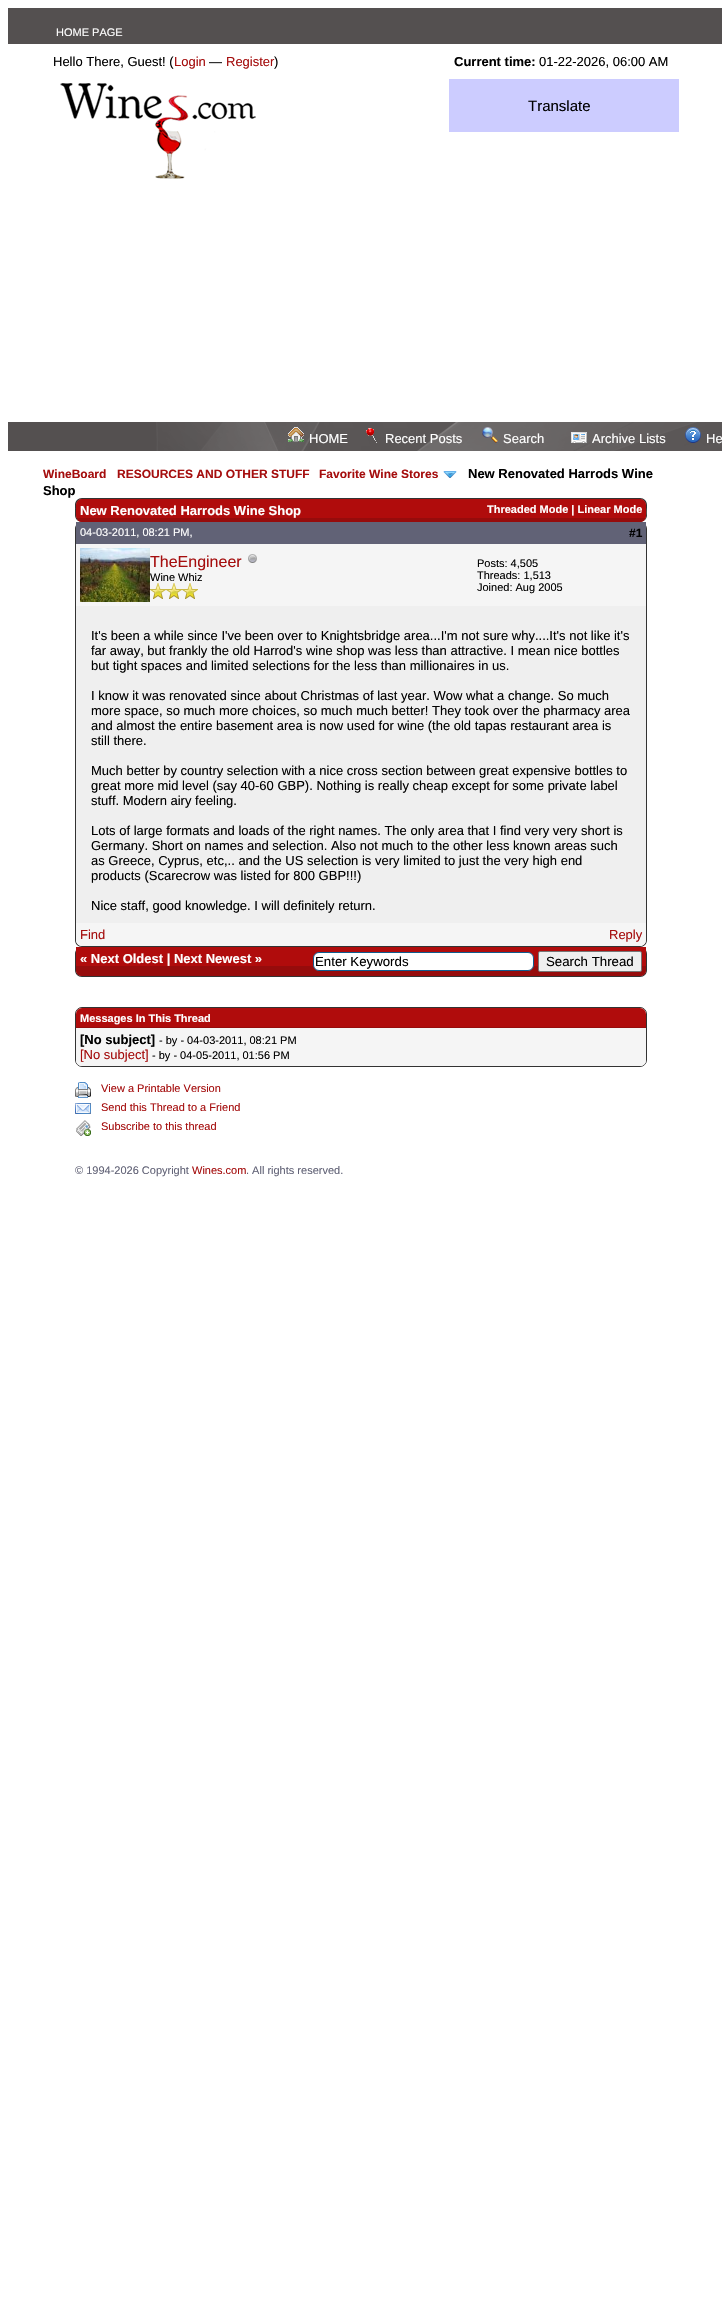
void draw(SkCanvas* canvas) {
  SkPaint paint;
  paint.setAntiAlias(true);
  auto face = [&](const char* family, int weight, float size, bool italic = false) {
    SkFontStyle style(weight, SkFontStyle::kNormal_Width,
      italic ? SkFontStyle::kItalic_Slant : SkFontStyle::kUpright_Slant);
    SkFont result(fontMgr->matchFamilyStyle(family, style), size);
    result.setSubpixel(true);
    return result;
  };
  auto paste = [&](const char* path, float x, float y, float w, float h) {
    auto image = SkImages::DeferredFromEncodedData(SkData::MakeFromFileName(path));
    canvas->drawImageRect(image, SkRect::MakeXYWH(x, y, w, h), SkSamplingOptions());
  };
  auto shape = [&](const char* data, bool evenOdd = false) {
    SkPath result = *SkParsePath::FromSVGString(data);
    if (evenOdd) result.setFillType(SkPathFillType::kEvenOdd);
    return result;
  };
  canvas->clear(0xffffffff);
  paint.setColor(0xff545050);
  canvas->drawRect(SkRect::MakeXYWH(8, 8, 714, 36), paint);
  paste("img/1.png", 60, 83, 196, 96);
  paint.setColor(0xffccccff);
  canvas->drawRect(SkRect::MakeXYWH(449, 79, 230, 53), paint);
  paint.setColor(0xff545050);
  canvas->drawRect(SkRect::MakeXYWH(8, 422, 714, 29), paint);
  paste("img/2.png", 156, 422, 566, 29);
  paste("img/3.png", 288, 427, 16, 15);
  paste("img/4.png", 366, 428, 11, 15);
  paste("img/5.png", 482, 427, 16, 16);
  paste("img/6.png", 571, 432, 16, 11);
  paste("img/7.png", 685, 427, 16, 16);
  paste("img/8.png", 443, 471, 14, 7);
  paint.setColor(0xffb00c0c);
  canvas->drawPath(shape("M82 499H640C644 499 646 503 646 507C646 511 648 522 640 522H82C76 522 76 514 76 510C76 506 76 499 82 499Z"), paint);
  paint.setColor(0xff333333);
  canvas->drawPath(shape("M82 498H640C644 498 647 501 647 505V515C647 519 644 522 640 522H82C78 522 75 519 75 515V505C75 501 78 498 82 498ZM82 499H640C644 499 646 503 646 507C646 511 648 522 640 522H82C76 522 76 514 76 510C76 506 76 499 82 499Z", true), paint);
  paste("img/9.png", 76, 499, 570, 23);
  canvas->drawPath(shape("M82 522H640C644 522 647 525 647 529V940C647 944 644 947 640 947H82C78 947 75 944 75 940V529C75 525 78 522 82 522ZM82 522H640C643 522 646 525 646 529V940C646 943 643 946 640 946H82C79 946 76 943 76 940V529C76 525 79 522 82 522Z", true), paint);
  paint.setColor(0xff616276);
  canvas->drawRect(SkRect::MakeXYWH(76, 522, 570, 22), paint);
  paint.setColor(0xfff5f5f5);
  canvas->drawRect(SkRect::MakeXYWH(76, 544, 570, 62), paint);
  paste("img/10.png", 80, 548, 70, 54);
  paste("img/11.png", 248, 554, 9, 9);
  paste("img/12.png", 150, 583, 16, 16);
  paste("img/12.png", 166, 583, 16, 16);
  paste("img/12.png", 182, 583, 16, 16);
  paint.setColor(0xffefefef);
  canvas->drawRect(SkRect::MakeXYWH(76, 606, 570, 317), paint);
  paint.setColor(0xfff5f5f5);
  canvas->drawPath(shape("M76 923H646V940C646 943.5 643.5 946 640 946H82C78.5 946 76 943.5 76 940Z"), paint);
  paint.setColor(0xff333333);
  canvas->drawPath(shape("M82 947H640C644 947 647 950 647 954V970C647 974 644 977 640 977H82C78 977 75 974 75 970V954C75 950 78 947 82 947ZM82 947H640C643 947 646 950 646 954V970C646 973 643 976 640 976H82C79 976 76 973 76 970V954C76 950 79 947 82 947Z", true), paint);
  paint.setColor(0xffb00c0c);
  canvas->drawPath(shape("M76 947H646V970C646 973.5 643.5 976 640 976H82C78.5 976 76 973.5 76 970Z"), paint);
  paste("img/13.png", 76, 966, 570, 10);
  paint.setColor(0xffffffff);
  canvas->drawRoundRect(SkRect::MakeXYWH(313.5f, 952.5f, 220, 18), 5.5f, 5.5f, paint);
  paint.setStroke(true);
  paint.setStrokeWidth(1);
  paint.setColor(0xff0f5c8e);
  canvas->drawRoundRect(SkRect::MakeXYWH(313.5f, 952.5f, 220, 18), 5.5f, 5.5f, paint);
  paint.setStroke(false);
  paint.setColor(0xffefefef);
  canvas->drawRoundRect(SkRect::MakeXYWH(538.5f, 951.5f, 103, 20), 1.5f, 1.5f, paint);
  paint.setStroke(true);
  paint.setColor(0xff767676);
  canvas->drawRoundRect(SkRect::MakeXYWH(538.5f, 951.5f, 103, 20), 1.5f, 1.5f, paint);
  paint.setColor(0xff333333);
  canvas->drawRoundRect(SkRect::MakeXYWH(75.5f, 1007.5f, 571, 59), 6.5f, 6.5f, paint);
  paste("img/14.png", 76, 1008, 570, 20);
  paint.setStroke(false);
  paint.setColor(0xfff5f5f5);
  canvas->drawPath(shape("M76 1028H646V1060C646 1063.5 643.5 1066 640 1066H82C78.5 1066 76 1063.5 76 1060Z"), paint);
  paste("img/15.png", 75, 1082, 16, 16);
  paste("img/16.png", 75, 1103, 16, 11);
  paste("img/17.png", 76, 1120, 15, 16);
  auto f0 = face("Liberation Sans", 400, 11);
  paint.setColor(0xffffffff);
  canvas->drawString("HOME PAGE", 56, 36, f0, paint);
  auto f1 = face("Liberation Sans", 400, 13);
  paint.setColor(0xff000000);
  canvas->drawString("Hello There, Guest! (", 53, 66, f1, paint);
  paint.setColor(0xffa50e0e);
  canvas->drawString("Login", 174, 66, f1, paint);
  paint.setColor(0xff000000);
  canvas->drawString("—", 209, 66, f1, paint);
  paint.setColor(0xffa50e0e);
  canvas->drawString("Register", 226, 66, f1, paint);
  paint.setColor(0xff000000);
  canvas->drawString(")", 274, 66, f1, paint);
  auto f2 = face("Liberation Sans", 700, 13);
  canvas->drawString("Current time:", 454, 66, f2, paint);
  canvas->drawString("01-22-2026, 06:00 AM", 539, 66, f1, paint);
  auto f3 = face("Liberation Sans", 400, 15);
  canvas->drawString("Translate", 528, 111, f3, paint);
  paint.setColor(0xffffffff);
  {
    const struct { const char* s; float x, y; } items[] = {
      {"HOME", 309, 443},
      {"Recent Posts", 385, 443},
      {"Search", 503, 443},
      {"Archive Lists", 592, 443},
      {"He", 706, 443},
    };
    for (auto [s, x, y] : items) {
      canvas->drawString(s, x, y, f1, paint);
    }
  }
  auto f4 = face("Liberation Sans", 700, 12);
  paint.setColor(0xffa50e0e);
  {
    const struct { const char* s; float x, y; } items[] = {
      {"WineBoard", 43, 478},
      {"RESOURCES AND OTHER STUFF", 117, 478},
      {"Favorite Wine Stores", 319, 478},
    };
    for (auto [s, x, y] : items) {
      canvas->drawString(s, x, y, f4, paint);
    }
  }
  paint.setColor(0xff000000);
  canvas->drawString("New Renovated Harrods Wine", 468, 478, f2, paint);
  canvas->drawString("Shop", 43, 495, f2, paint);
  paint.setColor(0xffffffff);
  canvas->drawString("New Renovated Harrods Wine Shop", 80, 515, f2, paint);
  auto f5 = face("Liberation Sans", 700, 11);
  canvas->drawString("Threaded Mode | Linear Mode", 487, 513, f5, paint);
  canvas->drawString("04-03-2011, 08:21 PM,", 80, 536, f0, paint);
  paint.setColor(0xff000000);
  canvas->drawString("#1", 629, 537, f4, paint);
  auto f6 = face("Liberation Sans", 400, 16);
  paint.setColor(0xffa50e0e);
  canvas->drawString("TheEngineer", 150, 567, f6, paint);
  paint.setColor(0xff000000);
  {
    const struct { const char* s; float x, y; } items[] = {
      {"Wine Whiz", 150, 581},
      {"Posts: 4,505", 477, 567},
      {"Threads: 1,513", 477, 579},
      {"Joined: Aug 2005", 477, 591},
    };
    for (auto [s, x, y] : items) {
      canvas->drawString(s, x, y, f0, paint);
    }
  }
  {
    const struct { const char* s; float x, y; } items[] = {
      {"It's been a while since I've been over to Knightsbridge area...I'm not sure why....It's not like it's", 91, 640},
      {"far away, but frankly the old Harrod's wine shop was less than attractive. I mean nice bottles", 91, 655},
      {"but tight spaces and limited selections for the less than millionaires in us.", 91, 670},
      {"I know it was renovated since about Christmas of last year. Wow what a change. So much", 91, 700},
      {"more space, so much more choices, so much much better! They took over the pharmacy area", 91, 715},
      {"and almost the entire basement area is now used for wine (the old tapas restaurant area is", 91, 730},
      {"still there.", 91, 745},
      {"Much better by country selection with a nice cross section between great expensive bottles to", 91, 775},
      {"great more mid level (say 40-60 GBP). Nothing is really cheap except for some private label", 91, 790},
      {"stuff. Modern airy feeling.", 91, 805},
      {"Lots of large formats and loads of the right names. The only area that I find very very short is", 91, 835},
      {"Germany. Short on names and selection. Also not much to the other less known areas such", 91, 850},
      {"as Greece, Cyprus, etc,.. and the US selection is very limited to just the very high end", 91, 865},
      {"products (Scarecrow was listed for 800 GBP!!!)", 91, 880},
      {"Nice staff, good knowledge. I will definitely return.", 91, 910},
    };
    for (auto [s, x, y] : items) {
      canvas->drawString(s, x, y, f1, paint);
    }
  }
  paint.setColor(0xffa50e0e);
  canvas->drawString("Find", 80, 939, f1, paint);
  canvas->drawString("Reply", 609, 939, f1, paint);
  paint.setColor(0xffffffff);
  canvas->drawString("« Next Oldest | Next Newest »", 80, 963, f2, paint);
  auto f7 = face("Liberation Sans", 400, 13.25f);
  paint.setColor(0xff000000);
  canvas->drawString("Enter Keywords", 315, 966, f7, paint);
  canvas->drawString("Search Thread", 546, 966, f7, paint);
  paint.setColor(0xffffffff);
  canvas->drawString("Messages In This Thread", 80, 1022, f5, paint);
  paint.setColor(0xff000000);
  canvas->drawString("[No subject]", 80, 1044, f2, paint);
  canvas->drawString("- by - 04-03-2011, 08:21 PM", 159, 1044, f0, paint);
  paint.setColor(0xffa50e0e);
  canvas->drawString("[No subject]", 80, 1059, f1, paint);
  paint.setColor(0xff000000);
  canvas->drawString("- by - 04-05-2011, 01:56 PM", 152, 1059, f0, paint);
  paint.setColor(0xffa50e0e);
  {
    const struct { const char* s; float x, y; } items[] = {
      {"View a Printable Version", 101, 1092},
      {"Send this Thread to a Friend", 101, 1111},
      {"Subscribe to this thread", 101, 1130},
    };
    for (auto [s, x, y] : items) {
      canvas->drawString(s, x, y, f0, paint);
    }
  }
  paint.setColor(0xff616276);
  canvas->drawString("© 1994-2026 Copyright", 75, 1174, f0, paint);
  paint.setColor(0xffa50e0e);
  canvas->drawString("Wines.com", 192, 1174, f0, paint);
  paint.setColor(0xff616276);
  canvas->drawString(". All rights reserved.", 246, 1174, f0, paint);
}
